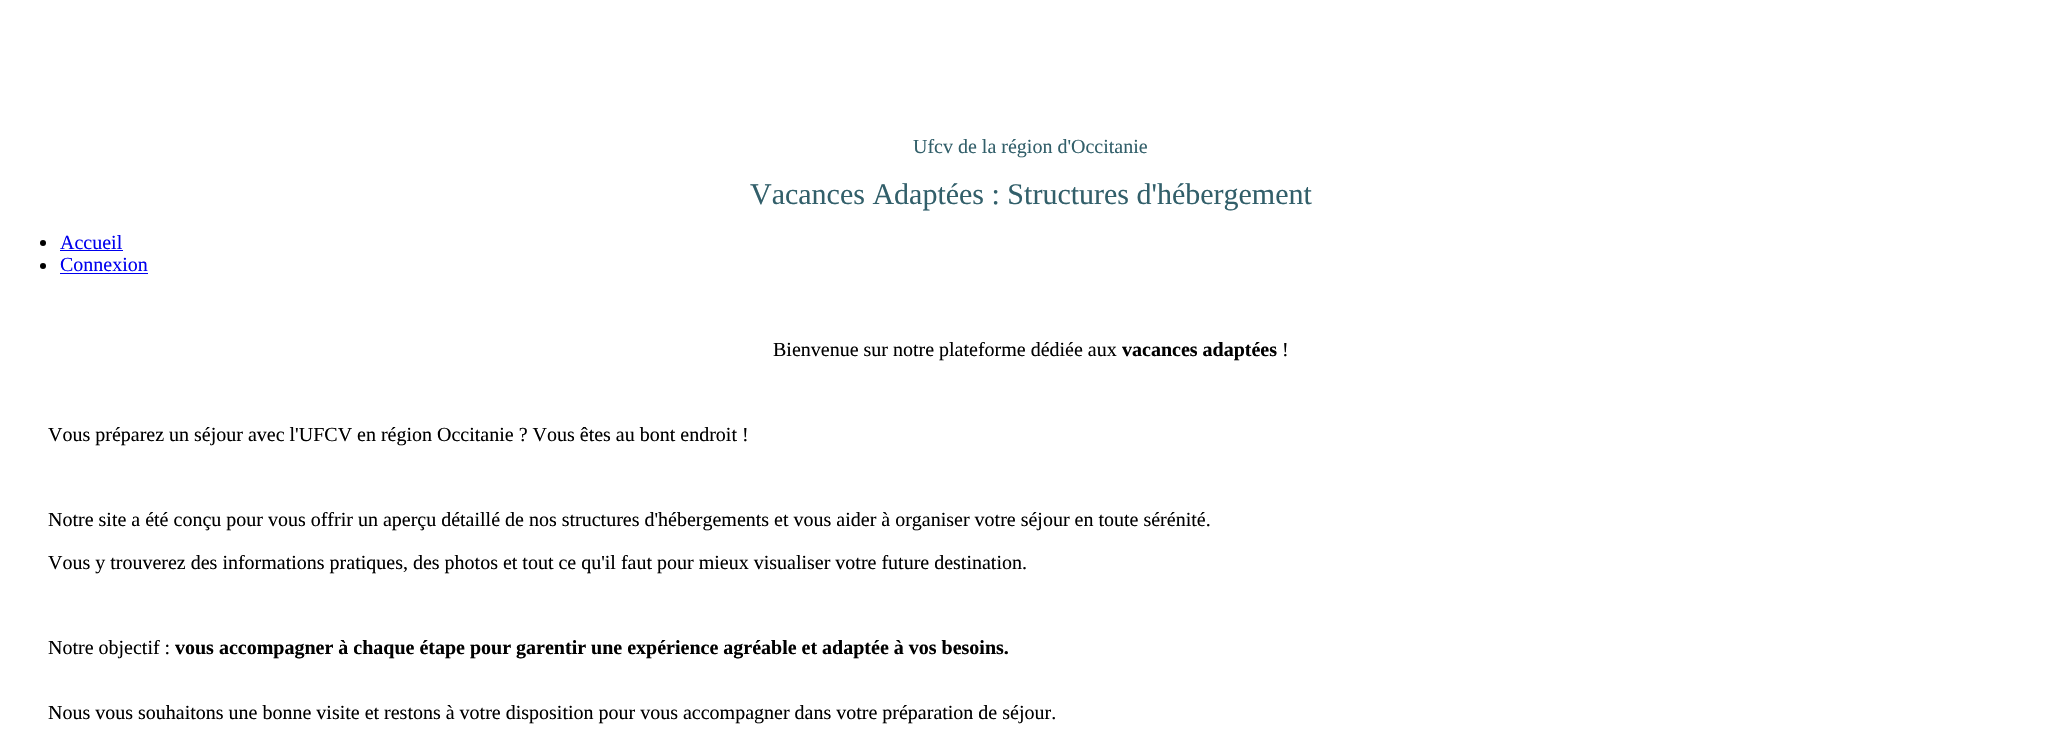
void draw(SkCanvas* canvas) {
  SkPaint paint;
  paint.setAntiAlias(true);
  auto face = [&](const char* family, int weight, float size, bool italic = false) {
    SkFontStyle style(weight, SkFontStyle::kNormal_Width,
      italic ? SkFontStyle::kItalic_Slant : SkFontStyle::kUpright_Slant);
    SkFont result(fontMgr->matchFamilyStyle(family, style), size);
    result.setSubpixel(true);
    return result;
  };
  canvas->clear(0xffffffff);
  paint.setColor(0xff000000);
  canvas->drawCircle(43, 243, 3, paint);
  paint.setColor(0xff0000ee);
  canvas->drawRect(SkRect::MakeXYWH(60, 250, 63, 1), paint);
  paint.setColor(0xff000000);
  canvas->drawCircle(43, 266, 3, paint);
  paint.setColor(0xff0000ee);
  canvas->drawRect(SkRect::MakeXYWH(60, 273, 88, 1), paint);
  auto f0 = face("Liberation Serif", 400, 20);
  paint.setColor(0xff325f6a);
  canvas->drawString("Ufcv de la région d'Occitanie", 913, 153, f0, paint);
  auto f1 = face("Liberation Serif", 400, 30);
  canvas->drawString("Vacances Adaptées : Structures d'hébergement", 750, 204, f1, paint);
  paint.setColor(0xff0000ee);
  canvas->drawString("Accueil", 60, 249, f0, paint);
  canvas->drawString("Connexion", 60, 271, f0, paint);
  paint.setColor(0xff000000);
  canvas->drawString("Bienvenue sur notre plateforme dédiée aux", 773, 356, f0, paint);
  auto f2 = face("Liberation Serif", 700, 20);
  canvas->drawString("vacances adaptées", 1122, 356, f2, paint);
  {
    const struct { const char* s; float x, y; } items[] = {
      {"!", 1282, 356},
      {"Vous préparez un séjour avec l'UFCV en région Occitanie ? Vous êtes au bont endroit !", 48, 441},
      {"Notre site a été conçu pour vous offrir un aperçu détaillé de nos structures d'hébergements et vous aider à organiser votre séjour en toute sérénité.", 48, 526},
      {"Vous y trouverez des informations pratiques, des photos et tout ce qu'il faut pour mieux visualiser votre future destination.", 48, 569},
      {"Notre objectif :", 48, 654},
    };
    for (auto [s, x, y] : items) {
      canvas->drawString(s, x, y, f0, paint);
    }
  }
  canvas->drawString("vous accompagner à chaque étape pour garentir une expérience agréable et adaptée à vos besoins.", 175, 654, f2, paint);
  canvas->drawString("Nous vous souhaitons une bonne visite et restons à votre disposition pour vous accompagner dans votre préparation de séjour.", 48, 719, f0, paint);
}
